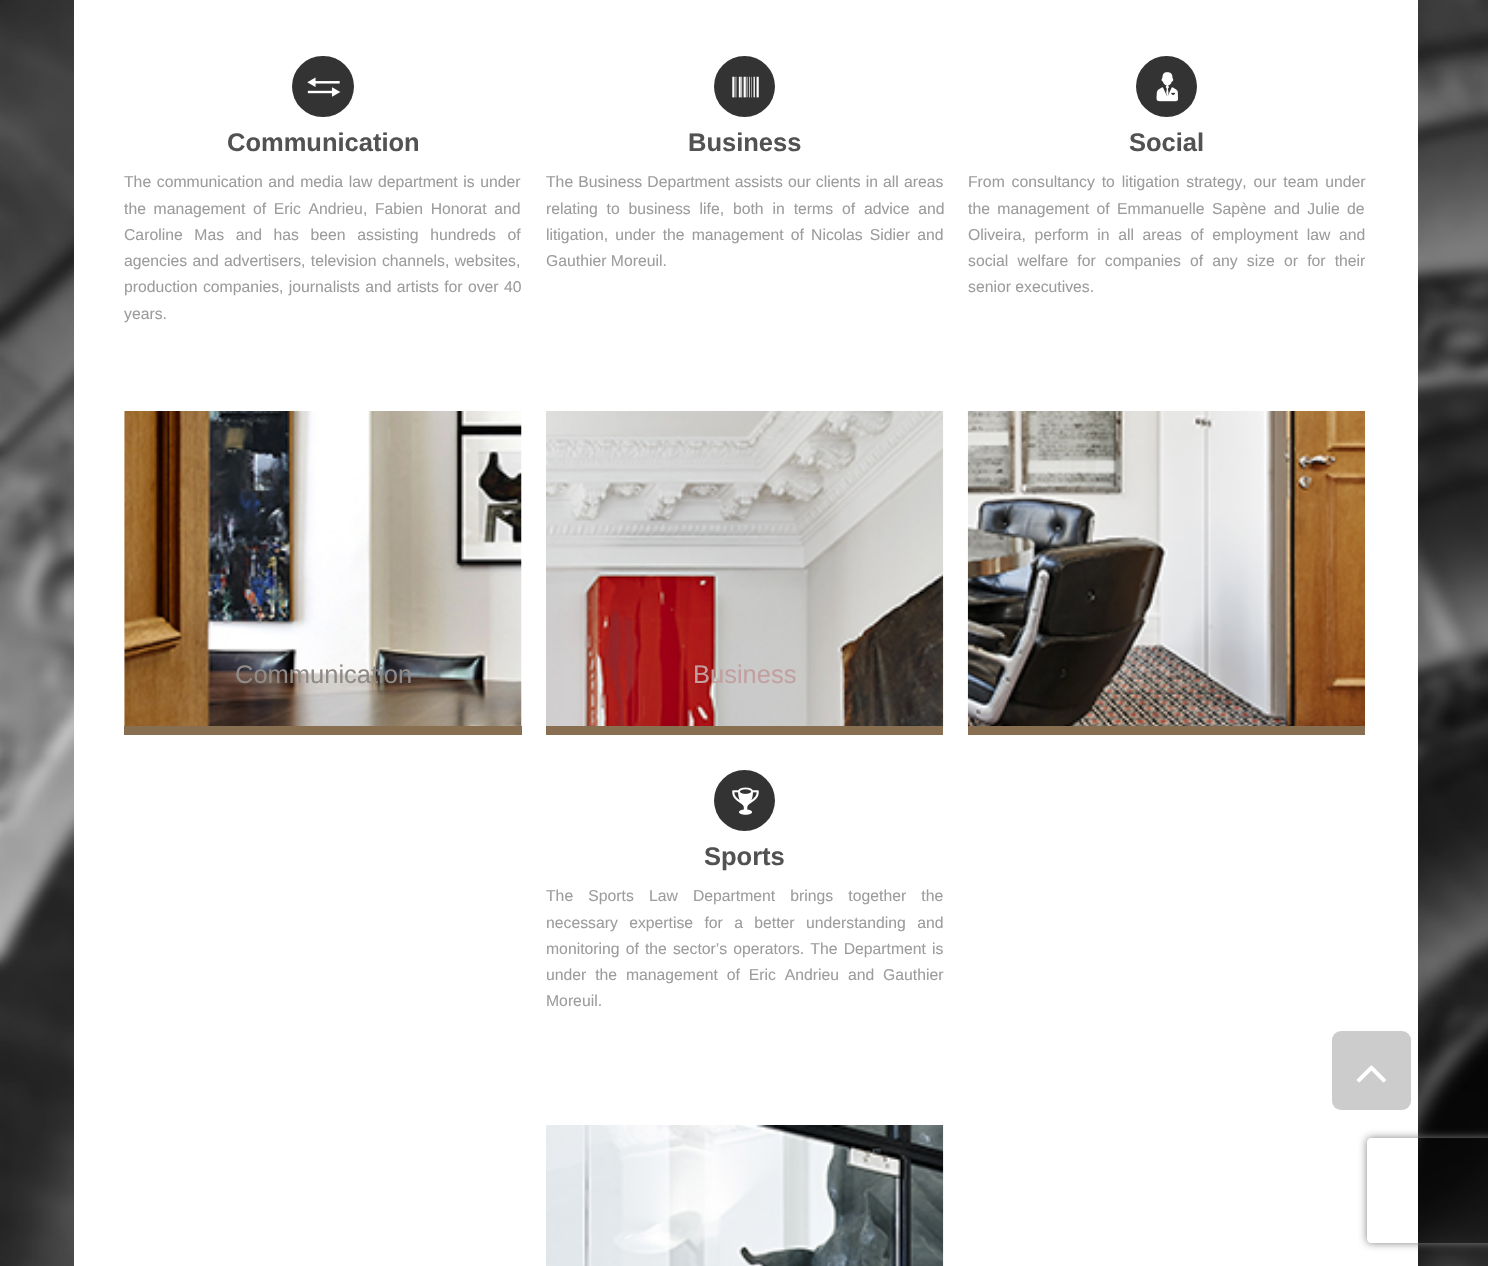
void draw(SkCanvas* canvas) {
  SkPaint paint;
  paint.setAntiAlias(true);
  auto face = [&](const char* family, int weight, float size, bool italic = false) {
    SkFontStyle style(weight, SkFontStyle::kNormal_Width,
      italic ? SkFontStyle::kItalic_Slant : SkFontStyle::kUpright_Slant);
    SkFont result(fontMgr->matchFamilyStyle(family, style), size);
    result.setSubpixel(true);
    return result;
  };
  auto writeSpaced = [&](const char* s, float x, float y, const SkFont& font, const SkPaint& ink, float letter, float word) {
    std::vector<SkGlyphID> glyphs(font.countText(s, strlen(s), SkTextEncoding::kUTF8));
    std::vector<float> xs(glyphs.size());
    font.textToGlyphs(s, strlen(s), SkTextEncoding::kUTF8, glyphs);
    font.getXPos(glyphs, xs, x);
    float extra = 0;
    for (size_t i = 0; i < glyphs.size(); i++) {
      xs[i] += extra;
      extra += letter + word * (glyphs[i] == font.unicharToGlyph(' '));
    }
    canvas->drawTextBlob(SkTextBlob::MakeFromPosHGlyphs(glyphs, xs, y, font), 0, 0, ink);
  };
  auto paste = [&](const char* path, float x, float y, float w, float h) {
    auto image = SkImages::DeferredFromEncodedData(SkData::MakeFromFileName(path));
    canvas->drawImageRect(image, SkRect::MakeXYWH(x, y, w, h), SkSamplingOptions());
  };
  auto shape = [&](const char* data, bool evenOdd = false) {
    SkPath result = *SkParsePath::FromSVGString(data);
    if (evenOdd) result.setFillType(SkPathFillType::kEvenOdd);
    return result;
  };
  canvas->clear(0xffffffff);
  paste("img/1.png", 0, 0, 1488, 1266);
  paint.setColor(0xffffffff);
  canvas->drawRect(SkRect::MakeXYWH(74, 0, 1344, 1266), paint);
  paint.setColor(0xff333333);
  canvas->drawRoundRect(SkRect::MakeXYWH(292, 56, 62, 61), 30.5f, 30.5f, paint);
  paste("img/2.png", 307, 77, 34, 20);
  paint.setColor(0xff886f51);
  canvas->drawRect(SkRect::MakeXYWH(124, 726, 398, 9), paint);
  paste("img/3.png", 124, 411, 398, 315);
  paint.setColor(0xff333333);
  canvas->drawCircle(744.5f, 86.5f, 30.5f, paint);
  paste("img/4.png", 732, 76, 27, 22);
  paint.setColor(0xff886f51);
  canvas->drawRect(SkRect::MakeXYWH(546, 726, 397, 9), paint);
  paste("img/5.png", 546, 411, 398, 315);
  paint.setColor(0xff333333);
  canvas->drawCircle(1166.5f, 86.5f, 30.5f, paint);
  paste("img/6.png", 1156, 72, 22, 30);
  paint.setColor(0xff886f51);
  canvas->drawRect(SkRect::MakeXYWH(968, 726, 397, 9), paint);
  paste("img/7.png", 967, 411, 398, 315);
  paint.setColor(0xff333333);
  canvas->drawCircle(744.5f, 800.5f, 30.5f, paint);
  paste("img/8.png", 732, 787, 27, 28);
  paste("img/9.png", 546, 1125, 398, 141);
  paint.setColor(0xffcccccc);
  canvas->drawRoundRect(SkRect::MakeXYWH(1332, 1031, 79, 79), 9, 9, paint);
  paste("img/10.png", 1356, 1065, 30, 18);
  canvas->save();
  canvas->clipPath(shape("M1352 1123H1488V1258H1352ZM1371 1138H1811C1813 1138 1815 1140 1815 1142V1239C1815 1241 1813 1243 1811 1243H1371C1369 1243 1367 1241 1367 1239V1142C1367 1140 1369 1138 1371 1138Z", true), true);
  paint.setColor(0xff808080);
  paint.setMaskFilter(SkMaskFilter::MakeBlur(kNormal_SkBlurStyle, 4.5f));
  canvas->drawRoundRect(SkRect::MakeXYWH(1367, 1138, 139, 105), 4, 4, paint);
  paint.setMaskFilter(nullptr);
  canvas->restore();
  auto f0 = face("Liberation Sans", 700, 25.5f);
  paint.setColor(0xff525252);
  canvas->drawString("Communication", 227, 151, f0, paint);
  auto f1 = face("Liberation Sans", 400, 15.75f);
  paint.setColor(0xff9c9c9c);
  writeSpaced("The communication and media law department is under", 124, 187, f1, paint, 0, 1.25f);
  writeSpaced("the management of Eric Andrieu, Fabien Honorat and", 124, 214, f1, paint, 0, 3.25f);
  writeSpaced("Caroline Mas and has been assisting hundreds of", 124, 240, f1, paint, 0, 7.25f);
  writeSpaced("agencies and advertisers, television channels, websites,", 124, 266, f1, paint, 0, 1);
  writeSpaced("production companies, journalists and artists for over 40", 124, 292, f1, paint, 0, 1);
  canvas->drawString("years.", 124, 319, f1, paint);
  auto f2 = face("Liberation Sans", 400, 25.5f);
  paint.setColor(0xff908a87);
  canvas->drawString("Communication", 235, 683, f2, paint);
  paint.setColor(0xff525252);
  canvas->drawString("Business", 688, 151, f0, paint);
  paint.setColor(0xff9c9c9c);
  writeSpaced("The Business Department assists our clients in all areas", 546, 187, f1, paint, 0, 0.75f);
  writeSpaced("relating to business life, both in terms of advice and", 546, 214, f1, paint, 0, 4.5f);
  writeSpaced("litigation, under the management of Nicolas Sidier and", 546, 240, f1, paint, 0, 2.75f);
  canvas->drawString("Gauthier Moreuil.", 546, 266, f1, paint);
  paint.setColor(0xffc2a09f);
  canvas->drawString("Business", 693, 683, f2, paint);
  paint.setColor(0xff525252);
  canvas->drawString("Social", 1129, 151, f0, paint);
  paint.setColor(0xff9c9c9c);
  writeSpaced("From consultancy to litigation strategy, our team under", 968, 187, f1, paint, 0, 2.5f);
  writeSpaced("the management of Emmanuelle Sapène and Julie de", 968, 214, f1, paint, 0, 3);
  writeSpaced("Oliveira, perform in all areas of employment law and", 968, 240, f1, paint, 0, 4.25f);
  writeSpaced("social welfare for companies of any size or for their", 968, 266, f1, paint, 0, 4.75f);
  canvas->drawString("senior executives.", 968, 292, f1, paint);
  paint.setColor(0xff525252);
  canvas->drawString("Sports", 704, 865, f0, paint);
  paint.setColor(0xff9c9c9c);
  writeSpaced("The Sports Law Department brings together the", 546, 901, f1, paint, 0, 10.75f);
  writeSpaced("necessary expertise for a better understanding and", 546, 928, f1, paint, 0, 7);
  writeSpaced("monitoring of the sector’s operators. The Department is", 546, 954, f1, paint, 0, 1.75f);
  writeSpaced("under the management of Eric Andrieu and Gauthier", 546, 980, f1, paint, 0, 4.5f);
  canvas->drawString("Moreuil.", 546, 1006, f1, paint);
}
